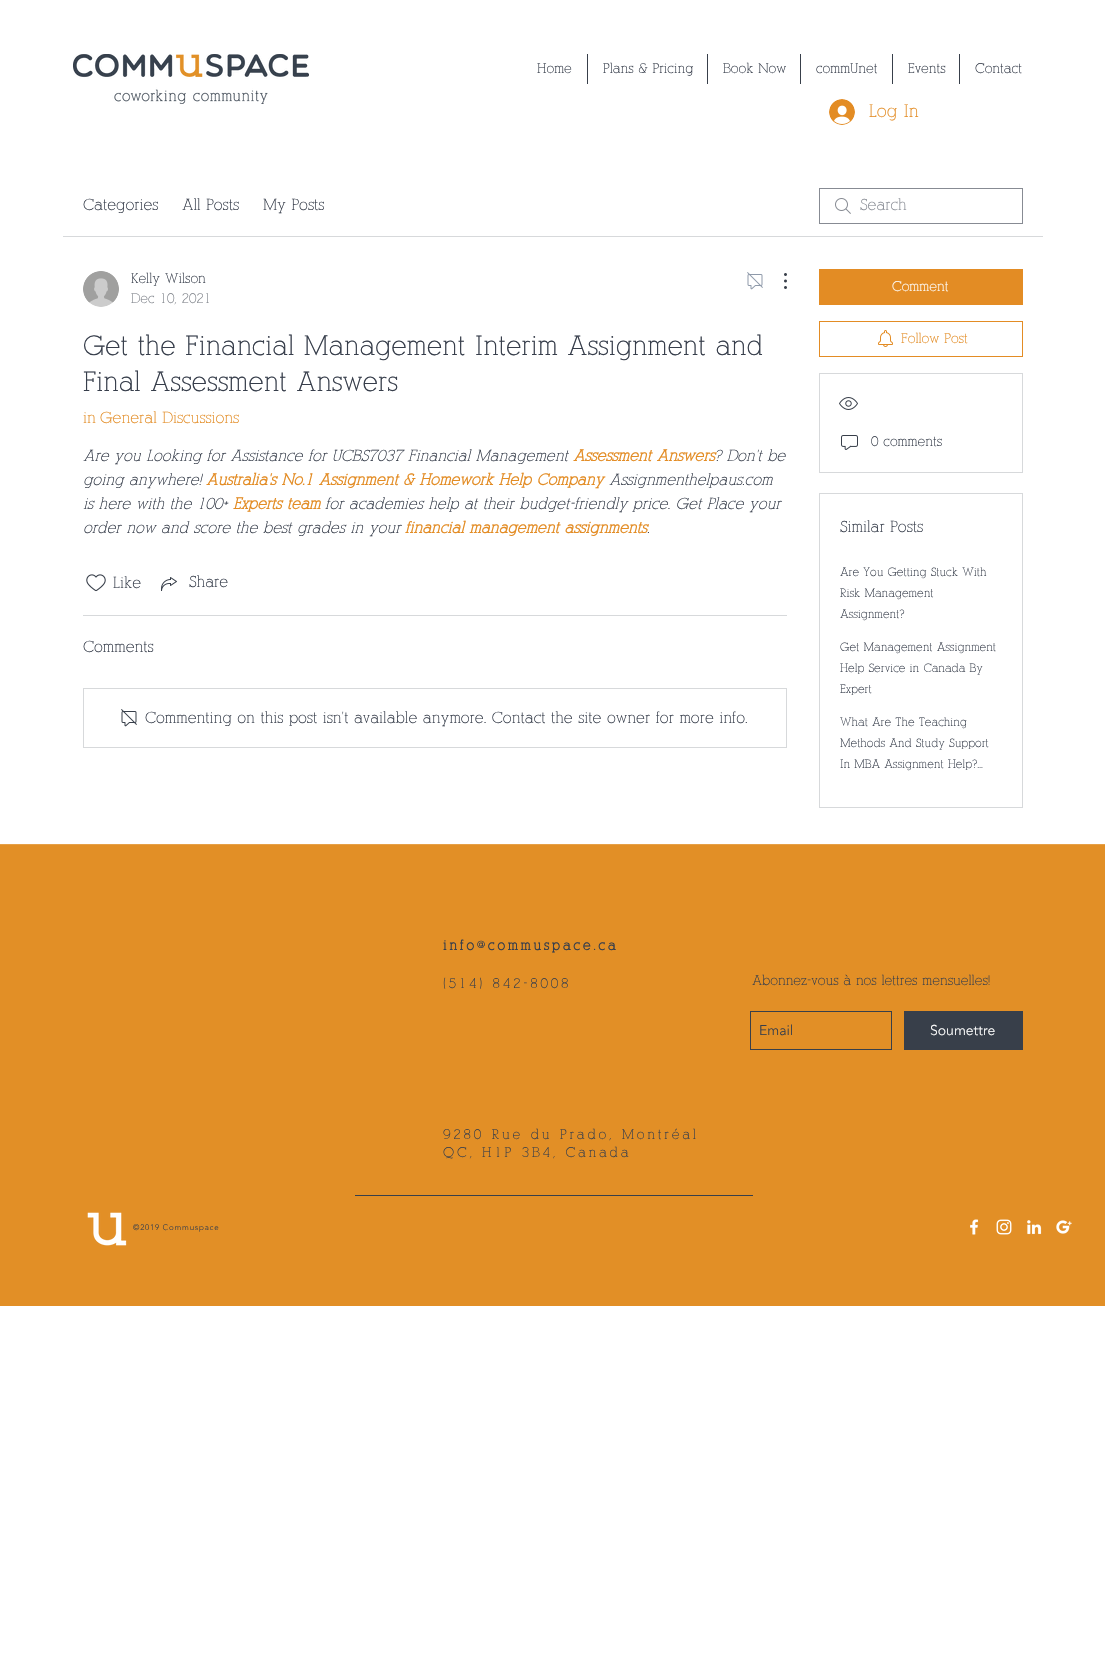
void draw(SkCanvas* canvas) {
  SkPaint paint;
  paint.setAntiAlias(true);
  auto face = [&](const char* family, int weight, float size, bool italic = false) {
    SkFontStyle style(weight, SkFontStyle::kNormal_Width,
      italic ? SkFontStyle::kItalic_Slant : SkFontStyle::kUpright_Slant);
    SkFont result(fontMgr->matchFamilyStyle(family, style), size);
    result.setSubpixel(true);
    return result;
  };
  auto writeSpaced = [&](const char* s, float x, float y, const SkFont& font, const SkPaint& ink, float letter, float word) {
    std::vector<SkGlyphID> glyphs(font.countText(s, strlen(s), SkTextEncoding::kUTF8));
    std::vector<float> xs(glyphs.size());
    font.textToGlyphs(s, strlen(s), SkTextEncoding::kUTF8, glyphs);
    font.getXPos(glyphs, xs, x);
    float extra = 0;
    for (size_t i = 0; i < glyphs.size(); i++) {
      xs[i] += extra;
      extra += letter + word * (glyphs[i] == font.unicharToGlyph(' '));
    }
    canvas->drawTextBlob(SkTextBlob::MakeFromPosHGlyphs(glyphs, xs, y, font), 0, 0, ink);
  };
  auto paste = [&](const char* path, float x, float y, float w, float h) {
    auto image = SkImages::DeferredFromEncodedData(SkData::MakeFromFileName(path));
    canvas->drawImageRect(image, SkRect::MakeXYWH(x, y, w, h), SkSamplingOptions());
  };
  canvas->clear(0xffffffff);
  paste("img/1.png", 73, 54, 236, 50);
  {
    const struct { float x, y, w, h; SkColor color; } items[] = {
      {587, 54, 1, 30, 0xff383f4a},
      {707, 54, 1, 30, 0xff383f4a},
      {800, 54, 1, 30, 0xff383f4a},
      {892, 54, 1, 30, 0xff383f4a},
      {959, 54, 1, 30, 0xff383f4a},
    };
    for (auto [x, y, w, h, color] : items) {
      paint.setColor(color);
      canvas->drawRect(SkRect::MakeXYWH(x, y, w, h), paint);
    }
  }
  paste("img/2.png", 829, 99, 26, 26);
  paint.setColor(0xffd7d9db);
  canvas->drawRect(SkRect::MakeXYWH(63, 236, 980, 1), paint);
  paste("img/3.png", 835, 198, 16, 16);
  paint.setStroke(true);
  paint.setStrokeWidth(1);
  paint.setColor(0xff878b93);
  canvas->drawRect(SkRect::MakeXYWH(819.5f, 188.5f, 203, 35), paint);
  paste("img/4.png", 83, 271, 36, 36);
  paste("img/5.png", 747, 272, 16, 18);
  paste("img/6.png", 784, 273, 3, 16);
  paste("img/7.png", 86, 574, 20, 18);
  paste("img/8.png", 161, 577, 16, 14);
  paint.setStroke(false);
  paint.setColor(0xffd7d9db);
  canvas->drawRect(SkRect::MakeXYWH(83, 615, 704, 1), paint);
  paint.setStroke(true);
  canvas->drawRect(SkRect::MakeXYWH(83.5f, 688.5f, 703, 59), paint);
  paste("img/9.png", 121, 709, 16, 18);
  paint.setStroke(false);
  paint.setColor(0xffe38c24);
  canvas->drawRect(SkRect::MakeXYWH(819, 269, 204, 36), paint);
  paint.setStroke(true);
  canvas->drawRect(SkRect::MakeXYWH(819.5f, 321.5f, 203, 35), paint);
  paste("img/10.png", 878, 330, 15, 17);
  paint.setColor(0xffd7d9db);
  canvas->drawRect(SkRect::MakeXYWH(819.5f, 373.5f, 203, 99), paint);
  paste("img/11.png", 839, 397, 19, 13);
  paste("img/12.png", 841, 435, 17, 15);
  canvas->drawRect(SkRect::MakeXYWH(819.5f, 493.5f, 203, 314), paint);
  paint.setStroke(false);
  paint.setColor(0xffe28f26);
  canvas->drawRect(SkRect::MakeXYWH(0, 845, 1105, 461), paint);
  paint.setColor(0xffe6a047);
  canvas->drawRect(SkRect::MakeXYWH(0, 844, 1105, 1), paint);
  paint.setStroke(true);
  paint.setColor(0xff383f4a);
  canvas->drawRect(SkRect::MakeXYWH(750.5f, 1011.5f, 141, 38), paint);
  paint.setStroke(false);
  canvas->drawRect(SkRect::MakeXYWH(904, 1011, 119, 39), paint);
  canvas->drawRect(SkRect::MakeXYWH(355, 1195, 398, 1), paint);
  paste("img/13.png", 87, 1212, 40, 34);
  paste("img/14.png", 970, 1219, 9, 16);
  paste("img/15.png", 996, 1219, 16, 16);
  paste("img/16.png", 1027, 1220, 15, 15);
  paste("img/17.png", 1056, 1220, 16, 14);
  auto f0 = face("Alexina", 400, 14);
  paint.setColor(0xff373e4b);
  {
    const struct { const char* s; float x, y; } items[] = {
      {"Home", 537, 73},
      {"Plans & Pricing", 603, 73},
      {"Book Now", 723, 73},
      {"commUnet", 816, 73},
      {"Events", 908, 73},
      {"Contact", 975, 73},
    };
    for (auto [s, x, y] : items) {
      canvas->drawString(s, x, y, f0, paint);
    }
  }
  auto f1 = face("Alexina", 400, 18);
  paint.setColor(0xffe38c24);
  canvas->drawString("Log In", 869, 117, f1, paint);
  auto f2 = face("Alexina", 400, 16);
  paint.setColor(0xff373e4b);
  {
    const struct { const char* s; float x, y; } items[] = {
      {"Categories", 83, 210},
      {"All Posts", 182, 210},
      {"My Posts", 263, 210},
    };
    for (auto [s, x, y] : items) {
      canvas->drawString(s, x, y, f2, paint);
    }
  }
  paint.setColor(0xff878b93);
  canvas->drawString("Search", 860, 210, f2, paint);
  paint.setColor(0xff373e4b);
  canvas->drawString("Kelly Wilson", 131, 283, f0, paint);
  paint.setColor(0xff80848b);
  canvas->drawString("Dec 10, 2021", 131, 303, f0, paint);
  auto f3 = face("Alexina", 400, 28);
  paint.setColor(0xff373e4b);
  canvas->drawString("Get the Financial Management Interim Assignment and", 83, 355, f3, paint);
  canvas->drawString("Final Assessment Answers", 83, 391, f3, paint);
  paint.setColor(0xffe38c24);
  canvas->drawString("in", 83, 423, f2, paint);
  canvas->drawString("General Discussions", 100, 423, f2, paint);
  auto f4 = face("Alexina", 400, 16, true);
  paint.setColor(0xff373e4b);
  canvas->drawString("Are you Looking for Assistance for UCBS7037 Financial Management", 83, 461, f4, paint);
  auto f5 = face("Alexina", 700, 16, true);
  paint.setColor(0xffe38c24);
  canvas->drawString("Assessment Answers", 573, 461, f5, paint);
  paint.setColor(0xff373e4b);
  canvas->drawString("? Don't be", 714, 461, f4, paint);
  canvas->drawString("going anywhere!", 83, 485, f4, paint);
  paint.setColor(0xffe38c24);
  canvas->drawString("Australia's No.1 Assignment & Homework Help Company", 206, 485, f5, paint);
  paint.setColor(0xff373e4b);
  canvas->drawString("Assignmenthelpaus.com", 609, 485, f4, paint);
  canvas->drawString("is here with the 100+", 83, 509, f4, paint);
  paint.setColor(0xffe38c24);
  canvas->drawString("Experts team", 233, 509, f5, paint);
  paint.setColor(0xff373e4b);
  canvas->drawString("for academies help at their budget-friendly price. Get Place your", 325, 509, f4, paint);
  canvas->drawString("order now and score the best grades in your", 83, 533, f4, paint);
  paint.setColor(0xffe38c24);
  canvas->drawString("financial management assignments", 405, 533, f5, paint);
  paint.setColor(0xff373e4b);
  canvas->drawString(".", 647, 533, f4, paint);
  {
    const struct { const char* s; float x, y; } items[] = {
      {"Like", 113, 588},
      {"Share", 189, 587},
      {"Comments", 83, 652},
      {"Commenting on this post isn't available anymore. Contact the site owner for more info.", 145, 723},
    };
    for (auto [s, x, y] : items) {
      canvas->drawString(s, x, y, f2, paint);
    }
  }
  paint.setColor(0xffffffff);
  canvas->drawString("Comment", 892, 291, f0, paint);
  paint.setColor(0xffe38c24);
  canvas->drawString("Follow Post", 901, 343, f0, paint);
  paint.setColor(0xff373e4b);
  canvas->drawString("0 comments", 871, 446, f0, paint);
  canvas->drawString("Similar Posts", 840, 532, f2, paint);
  auto f6 = face("Alexina", 400, 12);
  {
    const struct { const char* s; float x, y; } items[] = {
      {"Are You Getting Stuck With", 840, 576},
      {"Risk Management", 840, 597},
      {"Assignment?", 840, 618},
      {"Get Management Assignment", 840, 651},
      {"Help Service in Canada By", 840, 672},
      {"Expert", 840, 693},
      {"What Are The Teaching", 840, 726},
      {"Methods And Study Support", 840, 747},
      {"In MBA Assignment Help?…", 840, 768},
    };
    for (auto [s, x, y] : items) {
      canvas->drawString(s, x, y, f6, paint);
    }
  }
  auto f7 = face("Alexina", 700, 14);
  writeSpaced("info@commuspace.ca", 443, 950, f7, paint, 2.8f, 0);
  writeSpaced("(514) 842-8008", 443, 988, f0, paint, 2.8f, 0);
  canvas->drawString("Abonnez-vous à nos lettres mensuelles!", 752, 985, f0, paint);
  auto f8 = face("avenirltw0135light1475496", 300, 14);
  canvas->drawString("Email", 759, 1035, f8, paint);
  paint.setColor(0xffffffff);
  canvas->drawString("Soumettre", 930, 1035, f8, paint);
  paint.setColor(0xff373e4b);
  writeSpaced("9280 Rue du Prado, Montréal", 443, 1139, f0, paint, 2.8f, 0);
  writeSpaced("QC, H1P 3B4, Canada", 443, 1157, f0, paint, 2.8f, 0);
  auto f9 = face("avenirltw0135light1475496", 300, 8);
  writeSpaced("©2019 Commuspace", 133, 1230, f9, paint, 0.75f, 0);
}
